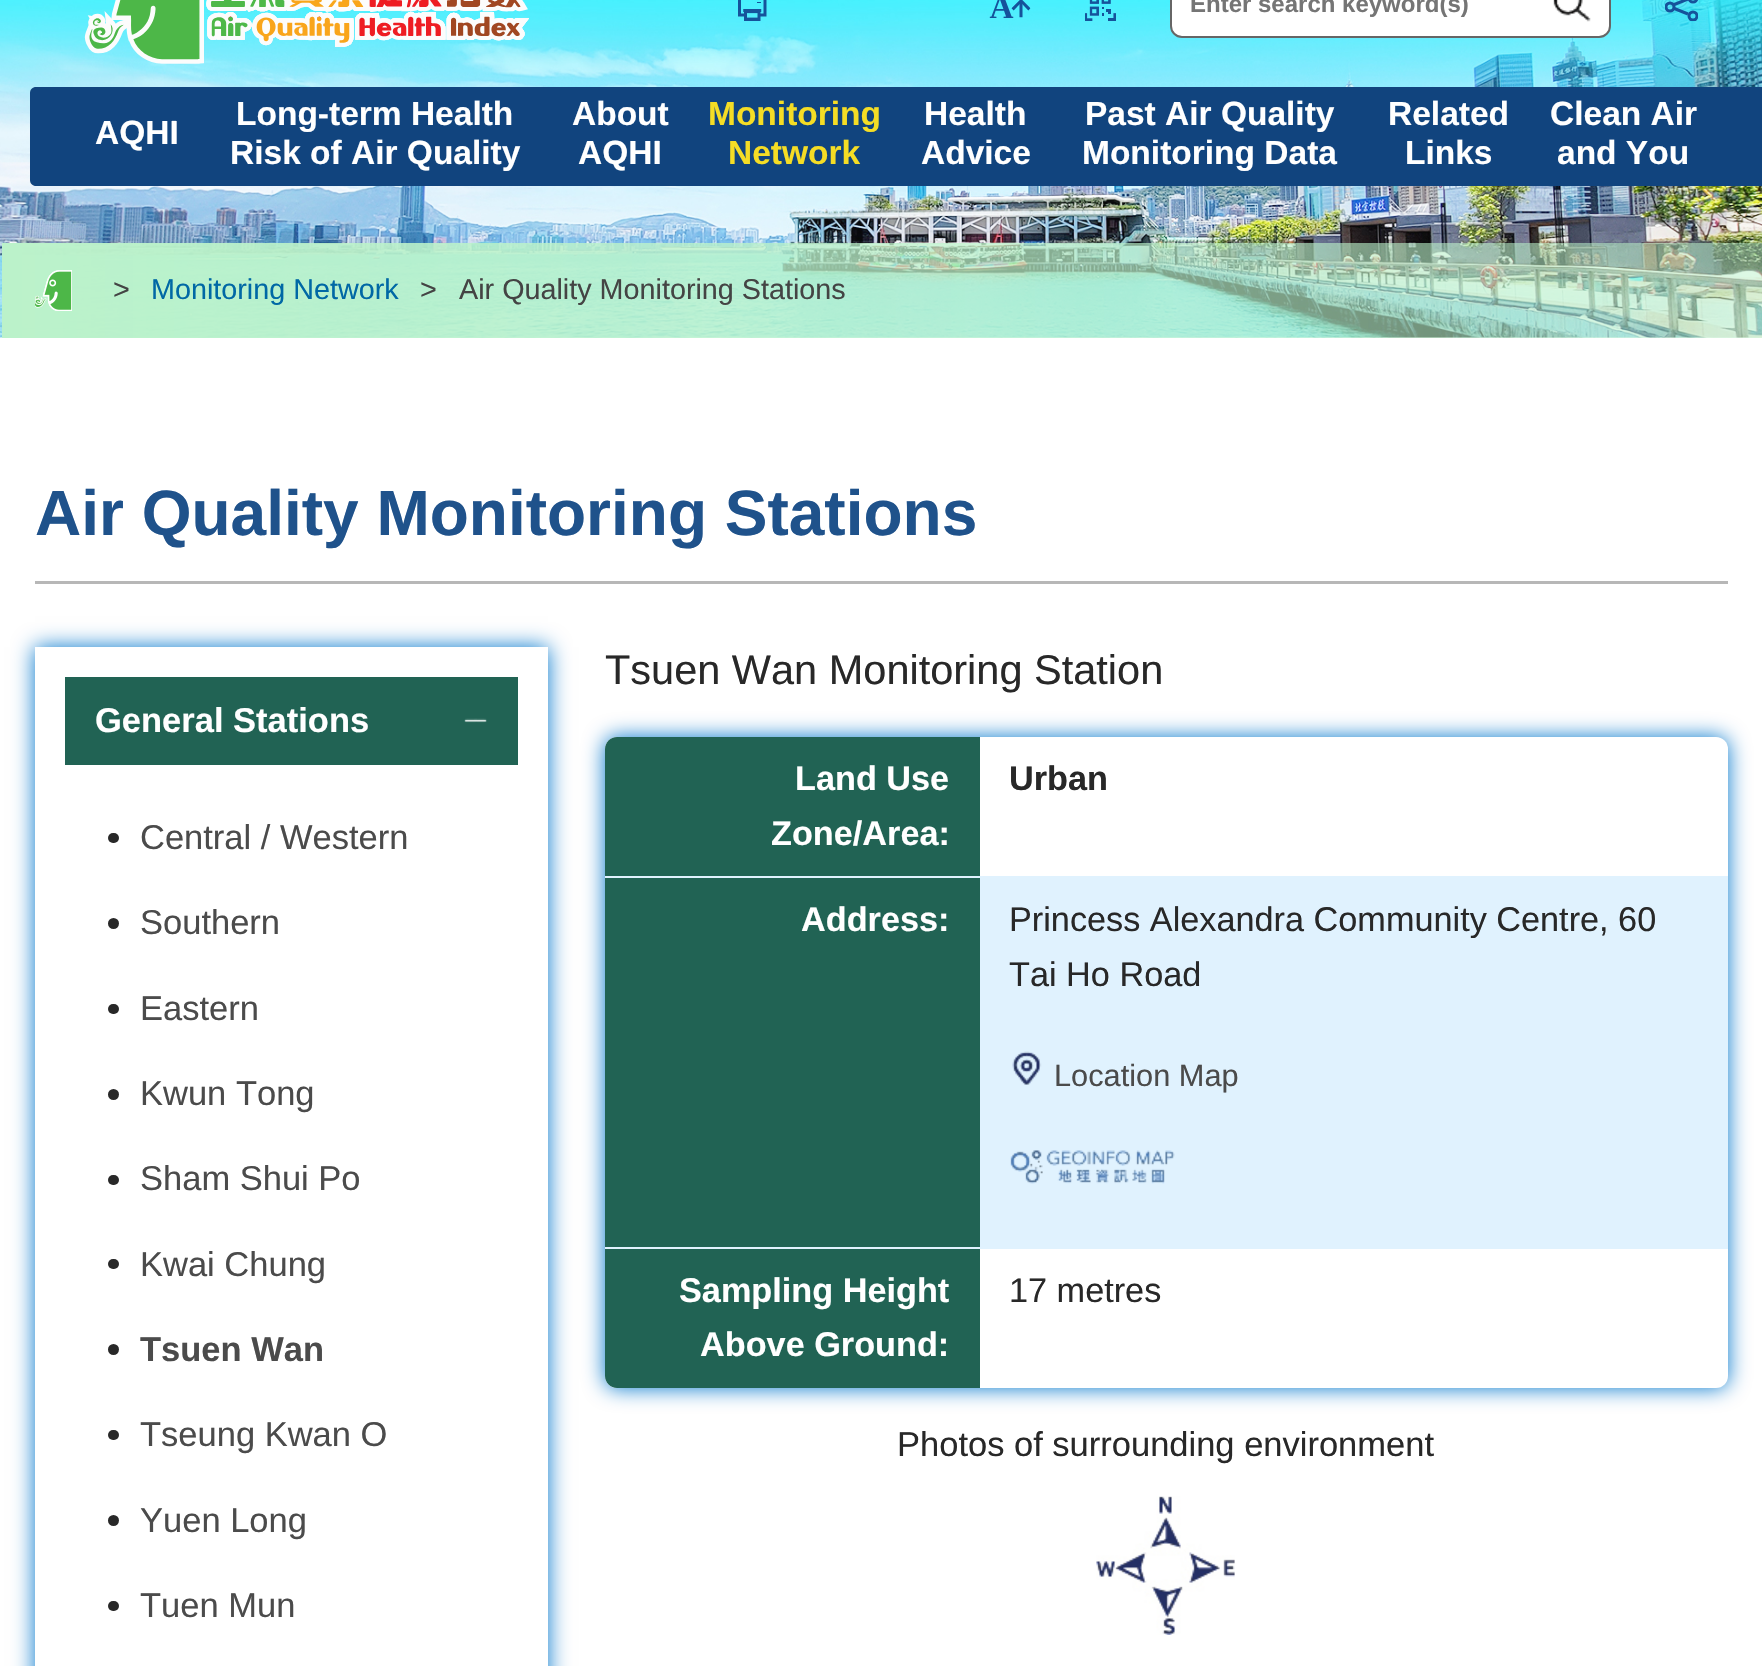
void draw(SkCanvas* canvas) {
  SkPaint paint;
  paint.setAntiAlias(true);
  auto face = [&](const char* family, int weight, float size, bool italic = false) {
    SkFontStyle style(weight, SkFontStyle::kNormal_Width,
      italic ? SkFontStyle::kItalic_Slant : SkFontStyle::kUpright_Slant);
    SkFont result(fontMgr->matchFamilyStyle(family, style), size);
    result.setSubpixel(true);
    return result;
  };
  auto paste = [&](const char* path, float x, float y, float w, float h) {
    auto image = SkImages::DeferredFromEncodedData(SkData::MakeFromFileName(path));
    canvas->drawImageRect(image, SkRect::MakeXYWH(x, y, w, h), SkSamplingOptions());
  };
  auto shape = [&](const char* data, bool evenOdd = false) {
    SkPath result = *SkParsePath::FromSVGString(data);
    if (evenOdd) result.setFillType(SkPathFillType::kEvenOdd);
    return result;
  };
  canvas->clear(0xffffffff);
  paste("img/1.png", 0, 0, 1762, 338);
  paste("img/2.png", 84, 0, 445, 64);
  paste("img/3.png", 738, 0, 29, 21);
  paste("img/4.png", 989, 0, 42, 18);
  paste("img/5.png", 1085, 0, 31, 21);
  paint.setColor(0xffffffff);
  canvas->drawRoundRect(SkRect::MakeXYWH(1171, -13, 439, 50), 11, 11, paint);
  paint.setStroke(true);
  paint.setStrokeWidth(2);
  paint.setColor(0xff666666);
  canvas->drawRoundRect(SkRect::MakeXYWH(1171, -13, 439, 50), 11, 11, paint);
  paste("img/6.png", 1553, 0, 38, 22);
  canvas->save();
  canvas->clipRect(SkRect::MakeXYWH(1665, 0, 33, 21));
  paint.setStrokeWidth(3);
  paint.setColor(0xff15539b);
  canvas->drawCircle(1670, 7, 4, paint);
  canvas->restore();
  canvas->drawCircle(1693, -2, 4, paint);
  canvas->save();
  canvas->clipRect(SkRect::MakeXYWH(1665, 0, 33, 21));
  canvas->drawCircle(1693, 16, 4, paint);
  canvas->restore();
  canvas->drawPath(shape("M1673 5L1688-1M1688 14L1673 8"), paint);
  paint.setStroke(false);
  paint.setColor(0xff11447e);
  canvas->drawPath(shape("M36 87H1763V186H36C32.5 186 30 183.5 30 180V93C30 89.5 32.5 87 36 87Z"), paint);
  {
    const SkColor colors[] = {0xffbbf2ca, 0x80bbf2ca};
    const float stops[] = {0, 1};
    const SkPoint ends[] = {{0.8f, 291}, {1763, 291}};
    paint.setShader(SkGradientShader::MakeLinear(ends, colors, stops, 2, SkTileMode::kClamp));
    paint.setAlpha(255);
  }
  canvas->drawRect(SkRect::MakeXYWH(2, 243, 1760, 95), paint);
  paste("img/7.png", 35, 270, 37, 41);
  paint.setShader(nullptr);
  paint.setColor(0xffb7b7b7);
  canvas->drawRect(SkRect::MakeXYWH(35, 581, 1693, 3), paint);
  paint.setColor(0xff0076cd);
  paint.setMaskFilter(SkMaskFilter::MakeBlur(kNormal_SkBlurStyle, 10.5f));
  canvas->drawRect(SkRect::MakeXYWH(35, 647, 513, 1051), paint);
  paint.setMaskFilter(nullptr);
  paint.setColor(0xffffffff);
  canvas->drawRect(SkRect::MakeXYWH(35, 647, 513, 1019), paint);
  paint.setColor(0xff216354);
  canvas->drawRect(SkRect::MakeXYWH(65, 677, 453, 88), paint);
  paste("img/8.png", 464, 718, 23, 5);
  paint.setColor(0xff282828);
  canvas->drawRoundRect(SkRect::MakeXYWH(108, 833, 11, 10), 5, 5, paint);
  canvas->drawCircle(113.5f, 923.5f, 5.5f, paint);
  canvas->drawRoundRect(SkRect::MakeXYWH(108, 1004, 11, 10), 5, 5, paint);
  canvas->drawCircle(113.5f, 1094.5f, 5.5f, paint);
  canvas->drawRoundRect(SkRect::MakeXYWH(108, 1175, 11, 10), 5, 5, paint);
  canvas->drawRoundRect(SkRect::MakeXYWH(108, 1259, 11, 10), 5, 5, paint);
  canvas->drawCircle(113.5f, 1349.5f, 5.5f, paint);
  canvas->drawRoundRect(SkRect::MakeXYWH(108, 1430, 11, 10), 5, 5, paint);
  canvas->drawCircle(113.5f, 1520.5f, 5.5f, paint);
  canvas->drawRoundRect(SkRect::MakeXYWH(108, 1601, 11, 10), 5, 5, paint);
  paint.setColor(0xff0076cd);
  paint.setMaskFilter(SkMaskFilter::MakeBlur(kNormal_SkBlurStyle, 10.5f));
  canvas->drawRoundRect(SkRect::MakeXYWH(605, 737, 1123, 651), 12, 12, paint);
  paint.setMaskFilter(nullptr);
  paint.setColor(0xffffffff);
  canvas->drawRoundRect(SkRect::MakeXYWH(605, 737, 1123, 651), 12, 12, paint);
  paint.setColor(0xff216354);
  canvas->drawPath(shape("M617 737H980V876H605V749C605 742.5 610.5 737 617 737Z"), paint);
  paint.setColor(0xffe0f2fe);
  canvas->drawRect(SkRect::MakeXYWH(605, 876, 1123, 2), paint);
  paint.setColor(0xff216354);
  canvas->drawPath(shape("M605 1247H980V1388H617C610.5 1388 605 1382.5 605 1376Z"), paint);
  {
    const struct { float x, y, w, h; SkColor color; } items[] = {
      {605, 1247, 1123, 2, 0xffe0f2fe},
      {605, 878, 375, 369, 0xff216354},
      {980, 878, 748, 369, 0xffe0f2fe},
    };
    for (auto [x, y, w, h, color] : items) {
      paint.setColor(color);
      canvas->drawRect(SkRect::MakeXYWH(x, y, w, h), paint);
    }
  }
  paste("img/9.png", 1012, 1051, 30, 34);
  paste("img/10.png", 1010, 1150, 165, 34);
  paste("img/11.png", 1096, 1496, 139, 139);
  auto f0 = face("Liberation Sans", 700, 24);
  paint.setColor(0xff757575);
  canvas->drawString("Enter search keyword(s)", 1190, 12, f0, paint);
  auto f1 = face("Liberation Sans", 700, 33.5f);
  paint.setColor(0xffffffff);
  {
    const struct { const char* s; float x, y; } items[] = {
      {"AQHI", 95, 144},
      {"Long-term Health", 236, 125},
      {"Risk of Air Quality", 230, 164},
      {"About", 572, 125},
      {"AQHI", 578, 164},
    };
    for (auto [s, x, y] : items) {
      canvas->drawString(s, x, y, f1, paint);
    }
  }
  paint.setColor(0xfff5dd25);
  canvas->drawString("Monitoring", 708, 125, f1, paint);
  canvas->drawString("Network", 728, 164, f1, paint);
  paint.setColor(0xffffffff);
  {
    const struct { const char* s; float x, y; } items[] = {
      {"Health", 924, 125},
      {"Advice", 921, 164},
      {"Past Air Quality", 1085, 125},
      {"Monitoring Data", 1082, 164},
      {"Related", 1388, 125},
      {"Links", 1405, 164},
      {"Clean Air", 1550, 125},
      {"and You", 1557, 164},
    };
    for (auto [s, x, y] : items) {
      canvas->drawString(s, x, y, f1, paint);
    }
  }
  auto f2 = face("Liberation Sans", 400, 28.75f);
  paint.setColor(0xff444444);
  canvas->drawString(">", 113, 299, f2, paint);
  paint.setColor(0xff0068a5);
  canvas->drawString("Monitoring Network", 151, 299, f2, paint);
  paint.setColor(0xff444444);
  canvas->drawString(">", 420, 299, f2, paint);
  canvas->drawString("Air Quality Monitoring Stations", 459, 299, f2, paint);
  auto f3 = face("Liberation Sans", 700, 64);
  paint.setColor(0xff1f528b);
  canvas->drawString("Air Quality Monitoring Stations", 35, 535, f3, paint);
  auto f4 = face("Liberation Sans", 700, 34.5f);
  paint.setColor(0xffffffff);
  canvas->drawString("General Stations", 95, 732, f4, paint);
  auto f5 = face("Liberation Sans", 400, 34.5f);
  paint.setColor(0xff4b4b4b);
  {
    const struct { const char* s; float x, y; } items[] = {
      {"Central / Western", 140, 849},
      {"Southern", 140, 934},
      {"Eastern", 140, 1020},
      {"Kwun Tong", 140, 1105},
      {"Sham Shui Po", 140, 1190},
      {"Kwai Chung", 140, 1276},
    };
    for (auto [s, x, y] : items) {
      canvas->drawString(s, x, y, f5, paint);
    }
  }
  canvas->drawString("Tsuen Wan", 140, 1361, f4, paint);
  {
    const struct { const char* s; float x, y; } items[] = {
      {"Tseung Kwan O", 140, 1446},
      {"Yuen Long", 140, 1532},
      {"Tuen Mun", 140, 1617},
    };
    for (auto [s, x, y] : items) {
      canvas->drawString(s, x, y, f5, paint);
    }
  }
  auto f6 = face("Liberation Sans", 400, 41.5f);
  paint.setColor(0xff282828);
  canvas->drawString("Tsuen Wan Monitoring Station", 605, 684, f6, paint);
  auto f7 = face("Liberation Sans", 700, 34.25f);
  paint.setColor(0xffffffff);
  canvas->drawString("Land Use", 795, 790, f7, paint);
  canvas->drawString("Zone/Area:", 771, 845, f7, paint);
  paint.setColor(0xff282828);
  canvas->drawString("Urban", 1009, 790, f7, paint);
  paint.setColor(0xffffffff);
  canvas->drawString("Address:", 801, 931, f7, paint);
  auto f8 = face("Liberation Sans", 400, 34.25f);
  paint.setColor(0xff282828);
  canvas->drawString("Princess Alexandra Community Centre, 60", 1009, 931, f8, paint);
  canvas->drawString("Tai Ho Road", 1009, 986, f8, paint);
  auto f9 = face("Liberation Sans", 400, 30.75f);
  paint.setColor(0xff4b4b4b);
  canvas->drawString("Location Map", 1054, 1086, f9, paint);
  paint.setColor(0xffffffff);
  canvas->drawString("Sampling Height", 679, 1302, f7, paint);
  canvas->drawString("Above Ground:", 700, 1356, f7, paint);
  paint.setColor(0xff282828);
  canvas->drawString("17 metres", 1009, 1302, f8, paint);
  canvas->drawString("Photos of surrounding environment", 897, 1456, f5, paint);
}
